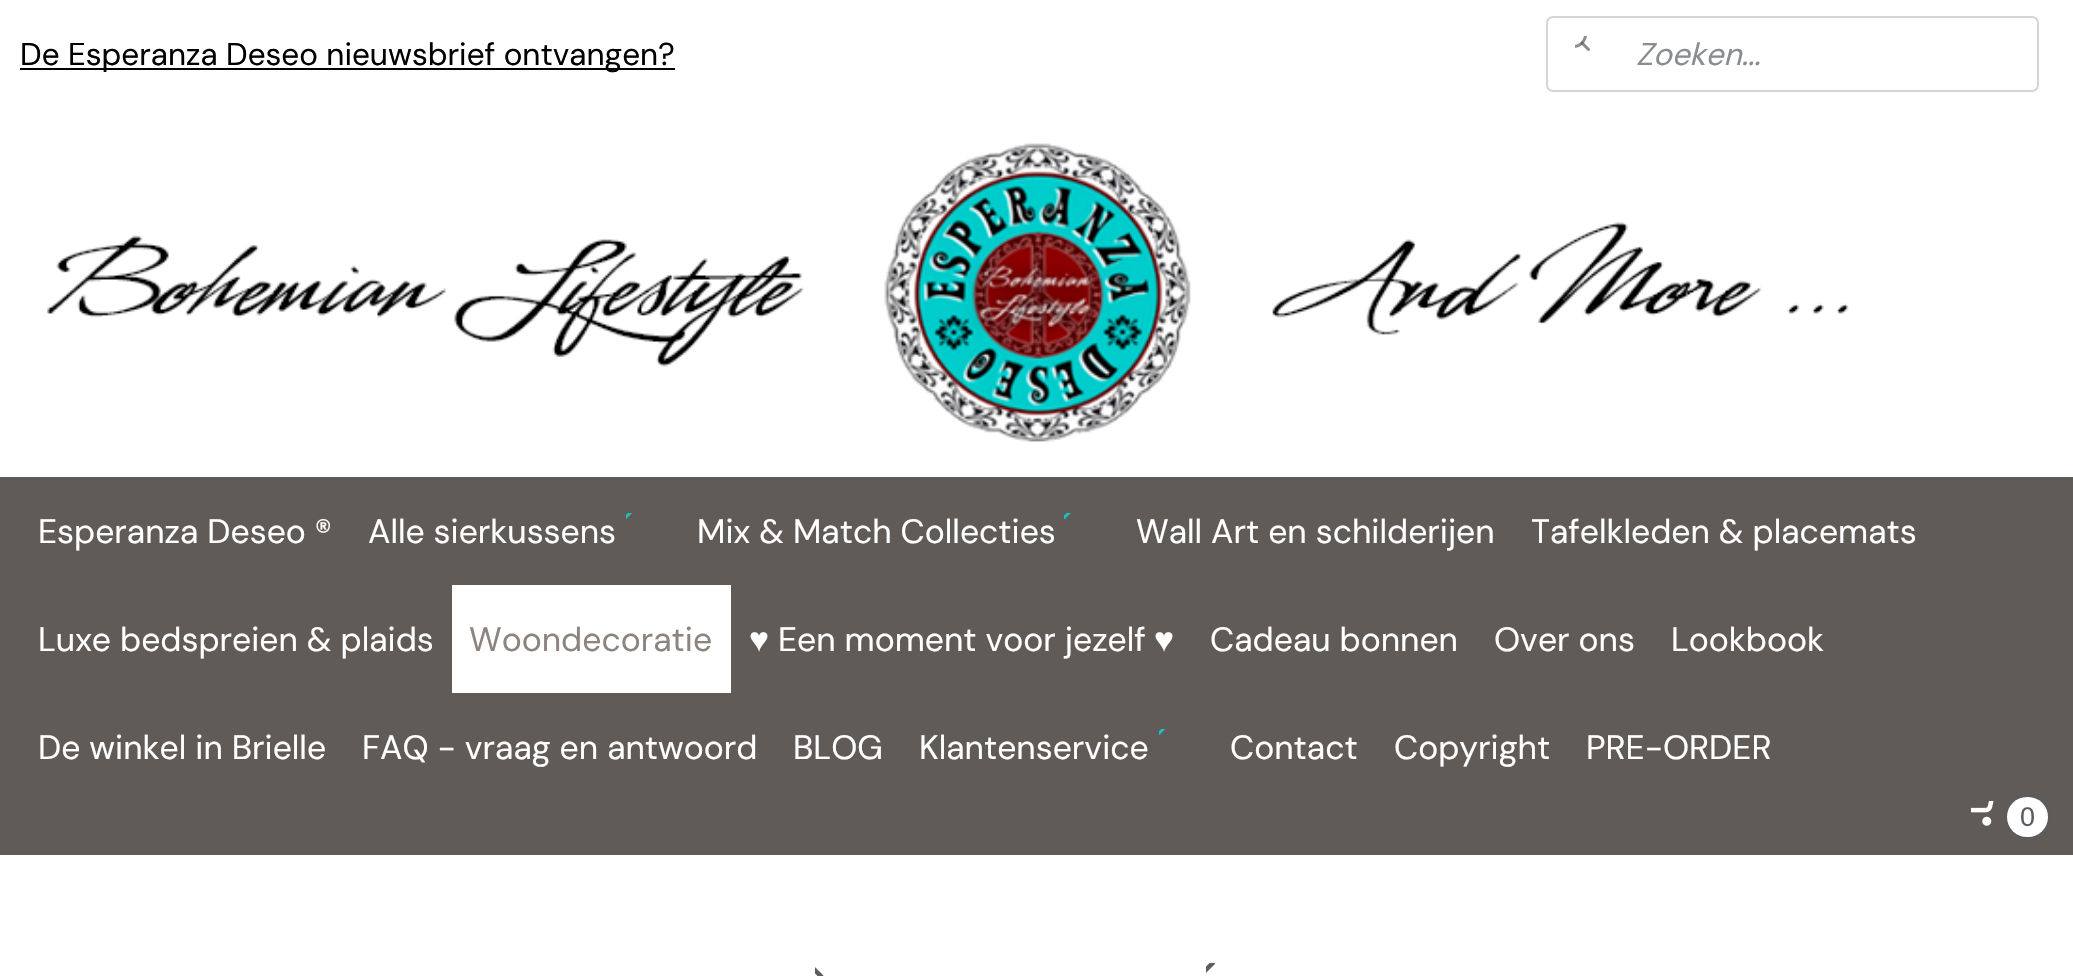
void draw(SkCanvas* canvas) {
  SkPaint paint;
  paint.setAntiAlias(true);
  auto face = [&](const char* family, int weight, float size, bool italic = false) {
    SkFontStyle style(weight, SkFontStyle::kNormal_Width,
      italic ? SkFontStyle::kItalic_Slant : SkFontStyle::kUpright_Slant);
    SkFont result(fontMgr->matchFamilyStyle(family, style), size);
    result.setSubpixel(true);
    return result;
  };
  auto paste = [&](const char* path, float x, float y, float w, float h) {
    auto image = SkImages::DeferredFromEncodedData(SkData::MakeFromFileName(path));
    canvas->drawImageRect(image, SkRect::MakeXYWH(x, y, w, h), SkSamplingOptions());
  };
  canvas->clear(0xffffffff);
  paint.setColor(0xff000000);
  canvas->drawRect(SkRect::MakeXYWH(20, 68, 655, 2), paint);
  paint.setStroke(true);
  paint.setStrokeWidth(2);
  paint.setColor(0xffd3d5d9);
  canvas->drawRoundRect(SkRect::MakeXYWH(1547, 17, 491, 74), 6, 6, paint);
  paste("img/1.png", 1575, 36, 15, 15);
  paste("img/2.png", 47, 143, 1802, 299);
  paint.setStroke(false);
  paint.setColor(0xff615b58);
  canvas->drawRect(SkRect::MakeXYWH(0, 477, 2073, 378), paint);
  paste("img/3.png", 626, 513, 6, 6);
  paste("img/4.png", 1064, 513, 7, 6);
  paint.setColor(0xffffffff);
  canvas->drawRect(SkRect::MakeXYWH(452, 585, 279, 108), paint);
  paste("img/5.png", 1159, 729, 7, 6);
  paste("img/6.png", 1971, 801, 23, 25);
  paint.setStroke(true);
  paint.setColor(0xff575b62);
  canvas->drawCircle(2027.5f, 816.5f, 21.5f, paint);
  paint.setStroke(false);
  paint.setColor(0xffffffff);
  canvas->drawRoundRect(SkRect::MakeXYWH(2007, 797, 41, 40), 20, 20, paint);
  paste("img/7.png", 815, 967, 9, 9);
  paste("img/8.png", 1206, 963, 9, 10);
  auto f0 = face("DM Sans", 400, 31.5f);
  paint.setColor(0xff000000);
  canvas->drawString("De Esperanza Deseo nieuwsbrief ontvangen?", 20, 65, f0, paint);
  auto f1 = face("DM Sans", 400, 31.5f, true);
  paint.setColor(0xff898c91);
  canvas->drawString("Zoeken...", 1636, 65, f1, paint);
  auto f2 = face("DM Sans", 400, 33.75f);
  paint.setColor(0xffffffff);
  {
    const struct { const char* s; float x, y; } items[] = {
      {"Esperanza Deseo ®", 38, 543},
      {"Alle sierkussens", 368, 543},
      {"Mix & Match Collecties", 697, 543},
      {"Wall Art en schilderijen", 1136, 543},
      {"Tafelkleden & placemats", 1531, 543},
      {"Luxe bedspreien & plaids", 38, 651},
    };
    for (auto [s, x, y] : items) {
      canvas->drawString(s, x, y, f2, paint);
    }
  }
  paint.setColor(0xff8c847f);
  canvas->drawString("Woondecoratie", 469, 651, f2, paint);
  auto f3 = face("Liberation Sans", 400, 33.75f);
  paint.setColor(0xffffffff);
  canvas->drawString("♥", 749, 651, f3, paint);
  canvas->drawString("Een moment voor jezelf", 778, 651, f2, paint);
  canvas->drawString("♥", 1154, 651, f3, paint);
  {
    const struct { const char* s; float x, y; } items[] = {
      {"Cadeau bonnen", 1210, 651},
      {"Over ons", 1494, 651},
      {"Lookbook", 1671, 651},
      {"De winkel in Brielle", 38, 759},
      {"FAQ - vraag en antwoord", 362, 759},
      {"BLOG", 793, 759},
      {"Klantenservice", 919, 759},
      {"Contact", 1230, 759},
      {"Copyright", 1394, 759},
      {"PRE-ORDER", 1586, 759},
    };
    for (auto [s, x, y] : items) {
      canvas->drawString(s, x, y, f2, paint);
    }
  }
  auto f4 = face("Liberation Sans", 400, 27);
  paint.setColor(0xff575b62);
  canvas->drawString("0", 2020, 826, f4, paint);
}
